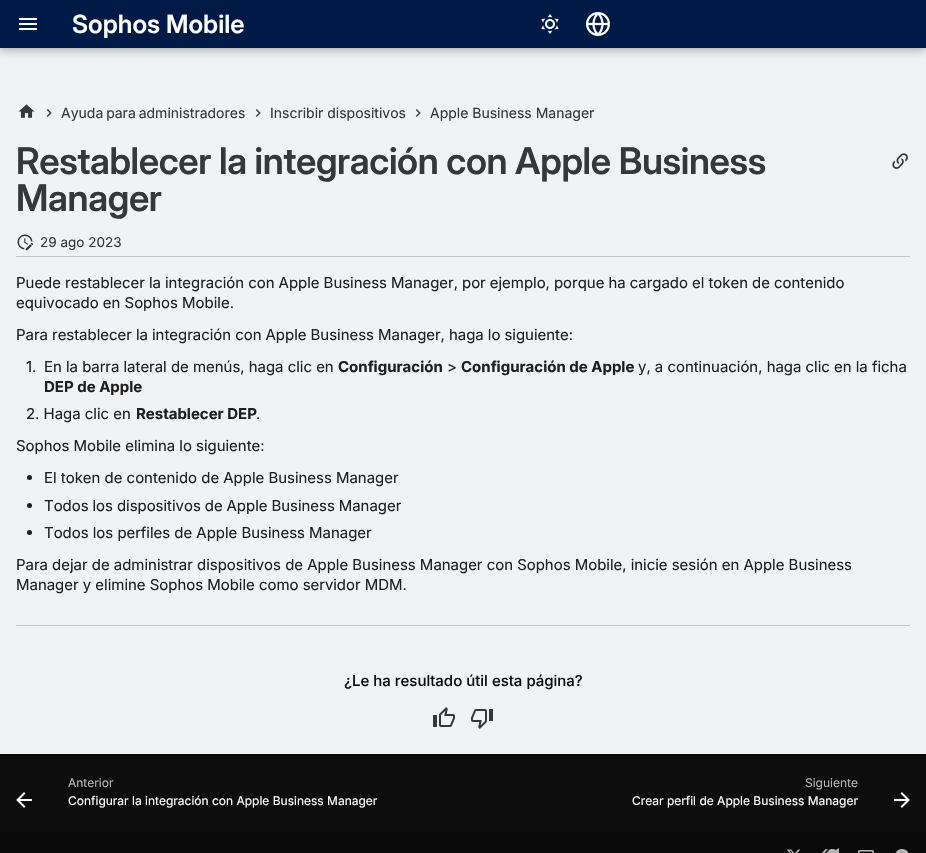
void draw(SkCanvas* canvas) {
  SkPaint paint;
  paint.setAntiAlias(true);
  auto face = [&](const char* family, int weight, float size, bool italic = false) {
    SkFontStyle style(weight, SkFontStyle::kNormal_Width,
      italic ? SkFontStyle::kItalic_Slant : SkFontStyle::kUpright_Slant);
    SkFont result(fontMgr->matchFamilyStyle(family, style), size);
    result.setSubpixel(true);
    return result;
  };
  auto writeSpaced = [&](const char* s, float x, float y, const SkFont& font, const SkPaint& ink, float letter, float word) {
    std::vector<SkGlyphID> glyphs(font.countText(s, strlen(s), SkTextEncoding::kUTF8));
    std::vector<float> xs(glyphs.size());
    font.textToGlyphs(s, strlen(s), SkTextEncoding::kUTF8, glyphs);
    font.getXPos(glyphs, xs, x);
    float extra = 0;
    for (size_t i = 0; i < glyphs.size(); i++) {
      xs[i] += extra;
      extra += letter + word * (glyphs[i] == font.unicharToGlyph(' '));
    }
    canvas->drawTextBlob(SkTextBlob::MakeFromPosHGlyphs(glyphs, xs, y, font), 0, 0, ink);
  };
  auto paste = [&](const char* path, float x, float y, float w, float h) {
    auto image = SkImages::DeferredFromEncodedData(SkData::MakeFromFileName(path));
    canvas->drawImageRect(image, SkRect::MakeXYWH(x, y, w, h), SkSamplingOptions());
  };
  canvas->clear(0xfff0f2f4);
  paint.setColor(0x33000000);
  paint.setMaskFilter(SkMaskFilter::MakeBlur(kNormal_SkBlurStyle, 4));
  canvas->drawRect(SkRect::MakeXYWH(0, 4, 926, 48), paint);
  paint.setMaskFilter(nullptr);
  paint.setColor(0x1a000000);
  paint.setMaskFilter(SkMaskFilter::MakeBlur(kNormal_SkBlurStyle, 2));
  canvas->drawRect(SkRect::MakeXYWH(0, 0, 926, 48), paint);
  paint.setMaskFilter(nullptr);
  paint.setColor(0xff001a47);
  canvas->drawRect(SkRect::MakeXYWH(0, 0, 926, 48), paint);
  paste("img/1.png", 19, 18, 18, 12);
  paste("img/2.png", 541, 14, 18, 20);
  paste("img/3.png", 586, 12, 24, 24);
  paste("img/4.png", 18, 104, 17, 14);
  paste("img/5.png", 46, 109, 6, 8);
  paste("img/5.png", 255, 109, 6, 8);
  paste("img/5.png", 415, 109, 6, 8);
  paste("img/6.png", 892, 153, 16, 16);
  paint.setColor(0xffc2c5ca);
  canvas->drawRect(SkRect::MakeXYWH(16, 256, 894, 1), paint);
  paste("img/7.png", 17, 234, 17, 17);
  paint.setColor(0xff1f1f20);
  canvas->drawCircle(29.5f, 477.5f, 2.5f, paint);
  canvas->drawCircle(29.5f, 505.5f, 2.5f, paint);
  canvas->drawCircle(29.5f, 532.5f, 2.5f, paint);
  paint.setColor(0xffc2c5ca);
  canvas->drawRect(SkRect::MakeXYWH(16, 625, 894, 1), paint);
  paste("img/8.png", 433, 707, 22, 20);
  paste("img/9.png", 471, 709, 22, 20);
  paint.setColor(0xff0d0d0e);
  canvas->drawRect(SkRect::MakeXYWH(0, 754, 926, 78), paint);
  paste("img/10.png", 16, 792, 16, 16);
  paste("img/11.png", 894, 792, 16, 16);
  paint.setColor(0xff09090a);
  canvas->drawRect(SkRect::MakeXYWH(0, 832, 926, 21), paint);
  paste("img/12.png", 787, 849, 14, 4);
  paste("img/13.png", 822, 848, 17, 5);
  paste("img/14.png", 858, 850, 16, 3);
  paste("img/15.png", 895, 849, 14, 4);
  auto f0 = face("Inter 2", 600, 25);
  paint.setColor(0xffffffff);
  canvas->drawString("Sophos Mobile", 72, 33, f0, paint);
  auto f1 = face("Inter", 400, 14);
  paint.setColor(0xff363738);
  writeSpaced("Ayuda para administradores", 61, 118, f1, paint, 0, -1);
  canvas->drawString("Inscribir dispositivos", 270, 118, f1, paint);
  canvas->drawString("Apple Business Manager", 430, 118, f1, paint);
  auto f2 = face("Inter", 600, 36.7f);
  writeSpaced("Restablecer la integración con Apple Business", 16, 174, f2, paint, -0.35f, 0);
  writeSpaced("Manager", 16, 211, f2, paint, -0.35f, 0);
  auto f3 = face("Inter", 400, 13.5f);
  canvas->drawString("29 ago 2023", 40, 247, f3, paint);
  auto f4 = face("Inter 2", 400, 15);
  paint.setColor(0xff1f1f20);
  writeSpaced("Puede restablecer la integración con Apple Business Manager, por ejemplo, porque ha cargado el token de contenido", 16, 288, f4, paint, 0, -0.1f);
  canvas->drawString("equivocado en Sophos Mobile.", 16, 308, f4, paint);
  writeSpaced("Para restablecer la integración con Apple Business Manager, haga lo siguiente:", 16, 340, f4, paint, 0, -0.1f);
  canvas->drawString("1.", 26, 372, f4, paint);
  canvas->drawString("En la barra lateral de menús, haga clic en", 44, 372, f4, paint);
  auto f5 = face("Inter", 700, 15);
  canvas->drawString("Configuración", 338, 372, f5, paint);
  canvas->drawString(">", 447, 372, f4, paint);
  canvas->drawString("Configuración de Apple", 461, 372, f5, paint);
  canvas->drawString("y, a continuación, haga clic en la ficha", 638, 372, f4, paint);
  canvas->drawString("DEP de Apple", 44, 392, f5, paint);
  canvas->drawString("2. Haga clic en", 26, 419, f4, paint);
  canvas->drawString("Restablecer DEP", 136, 419, f5, paint);
  {
    const struct { const char* s; float x, y; } items[] = {
      {".", 256, 419},
      {"Sophos Mobile elimina lo siguiente:", 16, 451},
      {"El token de contenido de Apple Business Manager", 44, 483},
    };
    for (auto [s, x, y] : items) {
      canvas->drawString(s, x, y, f4, paint);
    }
  }
  writeSpaced("Todos los dispositivos de Apple Business Manager", 44, 511, f4, paint, 0, -0.25f);
  {
    const struct { const char* s; float x, y; } items[] = {
      {"Todos los perfiles de Apple Business Manager", 44, 538},
      {"Para dejar de administrar dispositivos de Apple Business Manager con Sophos Mobile, inicie sesión en Apple Business", 16, 570},
      {"Manager y elimine Sophos Mobile como servidor MDM.", 16, 590},
    };
    for (auto [s, x, y] : items) {
      canvas->drawString(s, x, y, f4, paint);
    }
  }
  auto f6 = face("Inter", 500, 15);
  paint.setColor(0xff0d0d0e);
  canvas->drawString("¿Le ha resultado útil esta página?", 344, 686, f6, paint);
  auto f7 = face("Inter", 400, 12);
  paint.setColor(0xffb6b6b7);
  canvas->drawString("Anterior", 68, 787, f7, paint);
  paint.setColor(0xffffffff);
  canvas->drawString("Configurar la integración con Apple Business Manager", 68, 805, f7, paint);
  paint.setColor(0xffb6b6b7);
  canvas->drawString("Siguiente", 805, 787, f7, paint);
  paint.setColor(0xffffffff);
  canvas->drawString("Crear perfil de Apple Business Manager", 632, 805, f7, paint);
}
